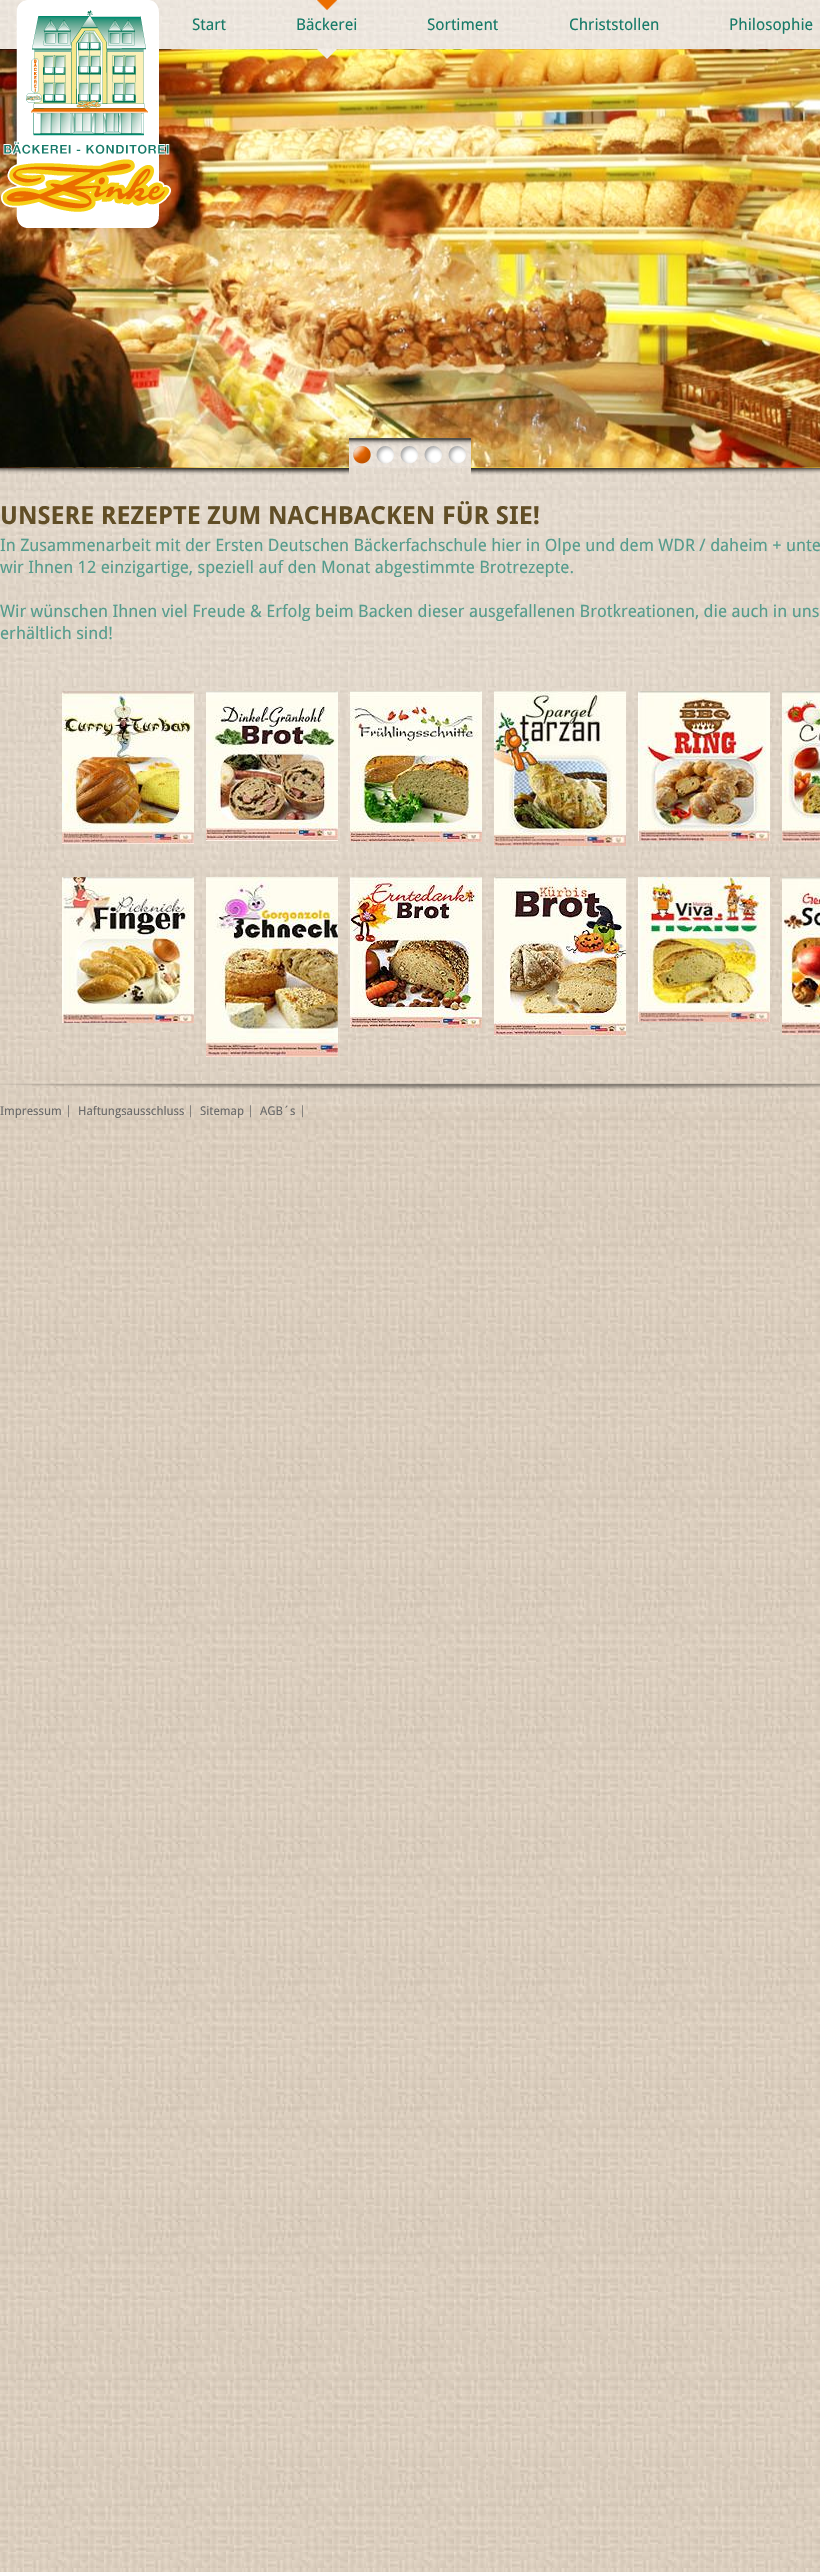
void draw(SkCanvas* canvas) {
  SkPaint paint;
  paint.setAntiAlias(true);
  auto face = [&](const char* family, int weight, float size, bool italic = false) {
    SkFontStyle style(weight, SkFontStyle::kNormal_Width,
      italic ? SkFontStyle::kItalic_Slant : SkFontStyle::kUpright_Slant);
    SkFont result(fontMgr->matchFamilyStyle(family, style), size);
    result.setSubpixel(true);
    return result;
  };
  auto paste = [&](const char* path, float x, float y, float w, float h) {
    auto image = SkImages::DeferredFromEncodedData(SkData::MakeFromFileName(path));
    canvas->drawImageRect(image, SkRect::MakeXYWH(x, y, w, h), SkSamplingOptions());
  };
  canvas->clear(0xffffffff);
  paste("img/1.png", 0, 0, 820, 2572);
  paste("img/2.png", 0, 0, 820, 1106);
  paint.setColor(0x66ffffff);
  canvas->drawRect(SkRect::MakeXYWH(0, 0, 820, 49), paint);
  paste("img/6.png", 0, 49, 820, 419);
  paste("img/3.png", 1, 0, 170, 228);
  paste("img/4.png", 317, 0, 20, 59);
  paste("img/5.png", 0, 468, 820, 7);
  paste("img/7.png", 349, 438, 122, 30);
  paste("img/8.png", 353, 446, 18, 18);
  paste("img/9.png", 376, 446, 18, 18);
  paste("img/10.png", 400, 446, 18, 18);
  paste("img/11.png", 424, 446, 18, 18);
  paste("img/12.png", 448, 446, 18, 18);
  paste("img/13.png", 62, 691, 132, 153);
  paste("img/14.png", 206, 691, 132, 150);
  paste("img/15.png", 350, 691, 132, 151);
  paste("img/16.png", 494, 691, 132, 155);
  paste("img/17.png", 638, 691, 132, 150);
  paste("img/18.png", 782, 691, 38, 151);
  paste("img/19.png", 62, 877, 132, 146);
  paste("img/20.png", 206, 877, 132, 180);
  paste("img/21.png", 350, 877, 132, 151);
  paste("img/22.png", 494, 877, 132, 159);
  paste("img/23.png", 638, 877, 132, 145);
  paste("img/24.png", 782, 877, 38, 158);
  paste("img/25.png", 0, 1083, 820, 7);
  paste("img/26.png", 68, 1105, 1, 13);
  paste("img/27.png", 190, 1105, 1, 13);
  paste("img/28.png", 250, 1105, 1, 13);
  paste("img/29.png", 302, 1105, 1, 13);
  auto f0 = face("Droid Sans", 400, 16);
  paint.setColor(0xff187b69);
  {
    const struct { const char* s; float x, y; } items[] = {
      {"Start", 192, 30},
      {"Bäckerei", 296, 30},
      {"Sortiment", 427, 30},
      {"Christstollen", 569, 30},
      {"Philosophie", 729, 30},
    };
    for (auto [s, x, y] : items) {
      canvas->drawString(s, x, y, f0, paint);
    }
  }
  auto f1 = face("Droid Sans", 700, 25);
  paint.setColor(0xff614e26);
  canvas->drawString("UNSERE REZEPTE ZUM NACHBACKEN FÜR SIE!", 0, 524, f1, paint);
  auto f2 = face("Droid Sans", 400, 17);
  paint.setColor(0xff569c8d);
  {
    const struct { const char* s; float x, y; } items[] = {
      {"In Zusammenarbeit mit der Ersten Deutschen Bäckerfachschule hier in Olpe und dem WDR / daheim + unte", 0, 551},
      {"wir Ihnen 12 einzigartige, speziell auf den Monat abgestimmte Brotrezepte.", 0, 573},
      {"Wir wünschen Ihnen viel Freude & Erfolg beim Backen dieser ausgefallenen Brotkreationen, die auch in uns", 0, 617},
      {"erhältlich sind!", 0, 639},
    };
    for (auto [s, x, y] : items) {
      canvas->drawString(s, x, y, f2, paint);
    }
  }
  auto f3 = face("Droid Sans", 400, 12);
  paint.setColor(0xff6a6a6a);
  {
    const struct { const char* s; float x, y; } items[] = {
      {"Impressum", 0, 1115},
      {"Haftungsausschluss", 78, 1115},
      {"Sitemap", 200, 1115},
      {"AGB´s", 260, 1115},
    };
    for (auto [s, x, y] : items) {
      canvas->drawString(s, x, y, f3, paint);
    }
  }
}
